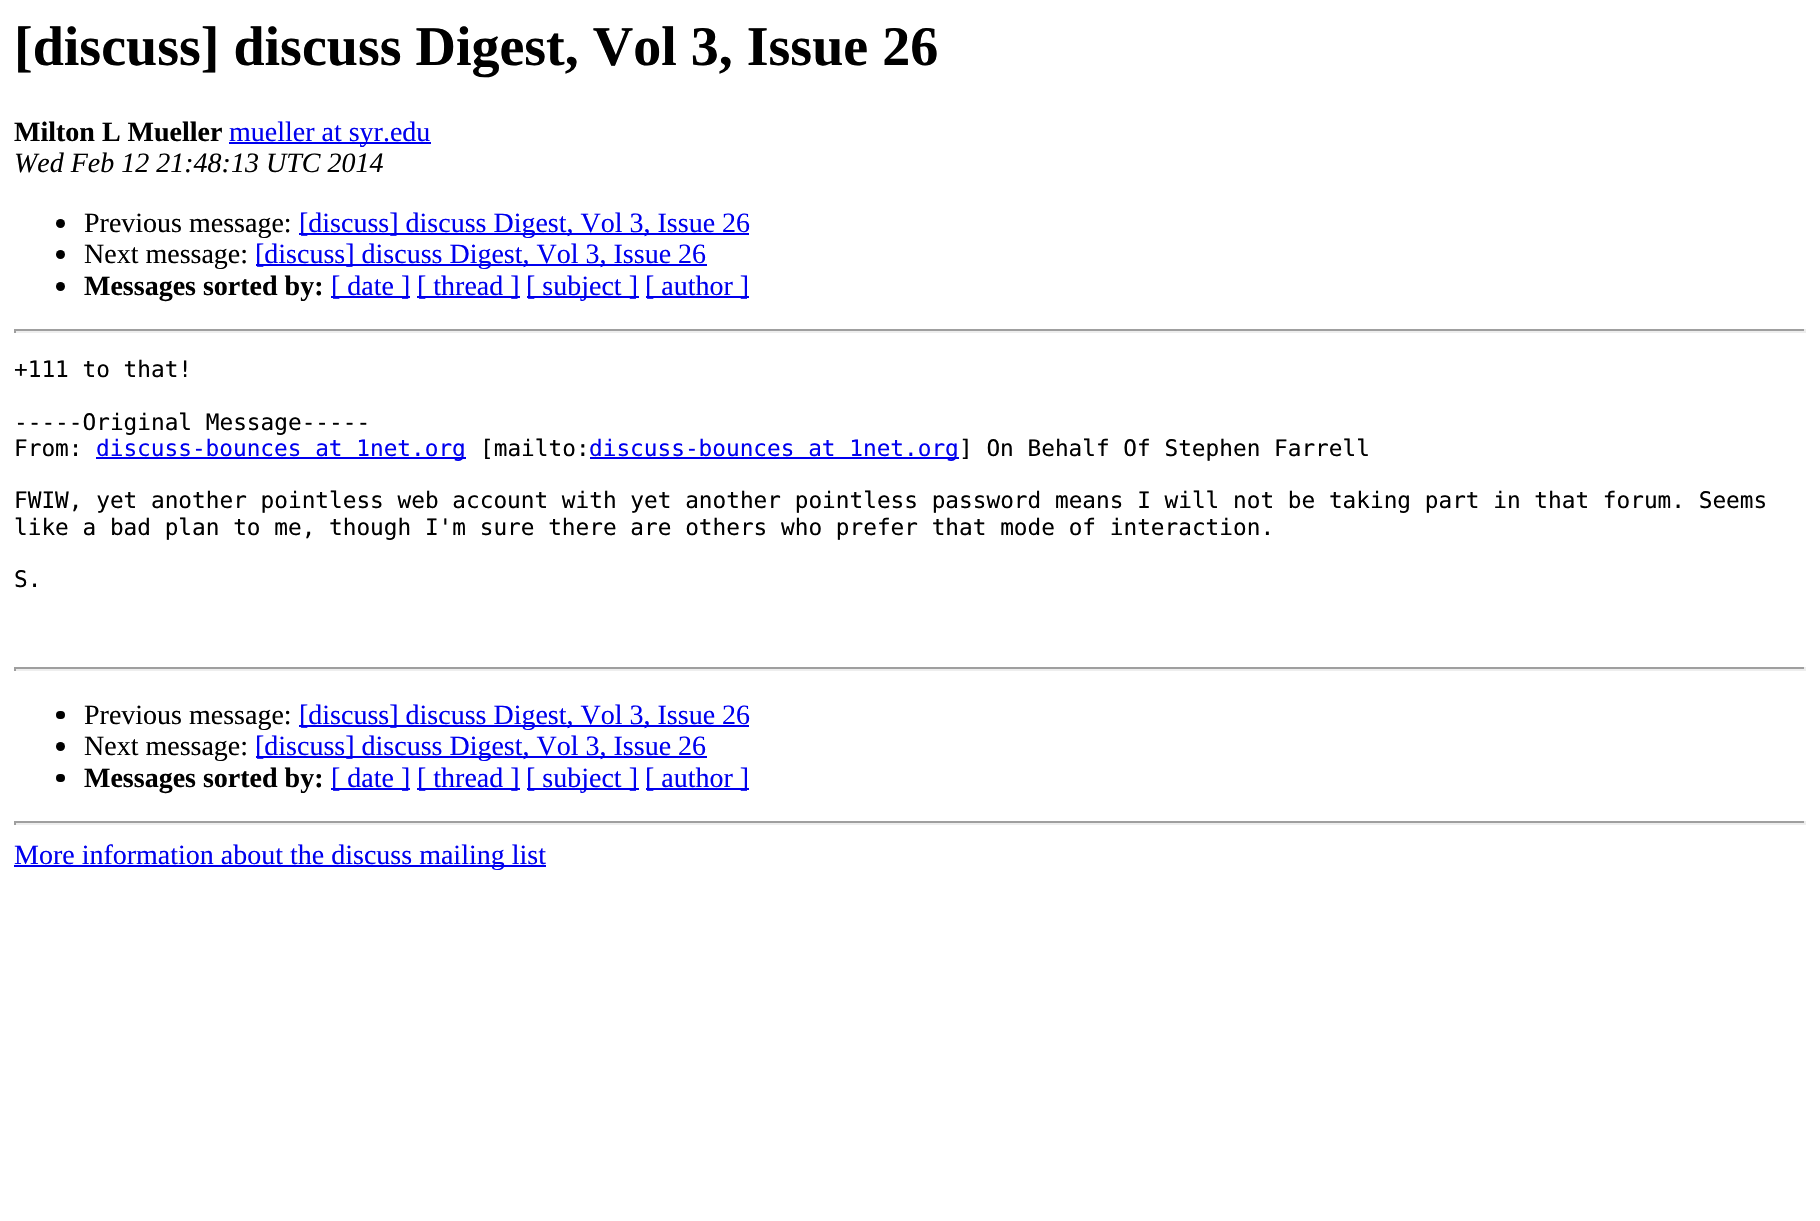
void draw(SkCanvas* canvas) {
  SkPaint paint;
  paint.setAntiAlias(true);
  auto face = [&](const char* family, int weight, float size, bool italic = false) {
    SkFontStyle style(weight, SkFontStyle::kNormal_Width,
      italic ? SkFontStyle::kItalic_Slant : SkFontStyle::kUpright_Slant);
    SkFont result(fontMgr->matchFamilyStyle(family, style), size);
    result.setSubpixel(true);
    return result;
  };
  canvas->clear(0xffffffff);
  paint.setColor(0xff0000ee);
  canvas->drawRect(SkRect::MakeXYWH(229, 142, 202, 2), paint);
  paint.setColor(0xff000000);
  canvas->drawCircle(60.5f, 223.5f, 4.5f, paint);
  paint.setColor(0xff0000ee);
  canvas->drawRect(SkRect::MakeXYWH(299, 233, 450, 2), paint);
  paint.setColor(0xff000000);
  canvas->drawCircle(60.5f, 254.5f, 4.5f, paint);
  paint.setColor(0xff0000ee);
  canvas->drawRect(SkRect::MakeXYWH(256, 264, 451, 2), paint);
  paint.setColor(0xff000000);
  canvas->drawCircle(60.5f, 286.5f, 4.5f, paint);
  {
    const struct { float x, y, w, h; SkColor color; } items[] = {
      {331, 296, 79, 2, 0xff0000ee},
      {417, 296, 103, 2, 0xff0000ee},
      {527, 296, 112, 2, 0xff0000ee},
      {646, 296, 103, 2, 0xff0000ee},
      {14, 329, 1792, 2, 0xff9f9f9f},
      {1804, 329, 2, 4, 0xffeeeeee},
      {14, 331, 1792, 2, 0xffeeeeee},
      {14, 329, 2, 4, 0xff9f9f9f},
      {96, 457, 370, 2, 0xff0000ee},
      {590, 457, 369, 2, 0xff0000ee},
      {14, 667, 1792, 2, 0xff9f9f9f},
      {1804, 667, 2, 4, 0xffeeeeee},
      {14, 669, 1792, 2, 0xffeeeeee},
      {14, 667, 2, 4, 0xff9f9f9f},
    };
    for (auto [x, y, w, h, color] : items) {
      paint.setColor(color);
      canvas->drawRect(SkRect::MakeXYWH(x, y, w, h), paint);
    }
  }
  paint.setColor(0xff000000);
  canvas->drawRoundRect(SkRect::MakeXYWH(56, 711, 9, 8), 4, 4, paint);
  paint.setColor(0xff0000ee);
  canvas->drawRect(SkRect::MakeXYWH(299, 725, 450, 2), paint);
  paint.setColor(0xff000000);
  canvas->drawCircle(60.5f, 746.5f, 4.5f, paint);
  paint.setColor(0xff0000ee);
  canvas->drawRect(SkRect::MakeXYWH(256, 756, 451, 2), paint);
  paint.setColor(0xff000000);
  canvas->drawRoundRect(SkRect::MakeXYWH(56, 774, 9, 8), 4, 4, paint);
  {
    const struct { float x, y, w, h; SkColor color; } items[] = {
      {331, 788, 79, 2, 0xff0000ee},
      {417, 788, 103, 2, 0xff0000ee},
      {527, 788, 112, 2, 0xff0000ee},
      {646, 788, 103, 2, 0xff0000ee},
      {14, 821, 1792, 2, 0xff9f9f9f},
      {1804, 821, 2, 4, 0xffeeeeee},
      {14, 823, 1792, 2, 0xffeeeeee},
      {14, 821, 2, 4, 0xff9f9f9f},
      {14, 865, 532, 2, 0xff0000ee},
    };
    for (auto [x, y, w, h, color] : items) {
      paint.setColor(color);
      canvas->drawRect(SkRect::MakeXYWH(x, y, w, h), paint);
    }
  }
  auto f0 = face("Liberation Serif", 700, 56);
  paint.setColor(0xff000000);
  canvas->drawString("[discuss] discuss Digest, Vol 3, Issue 26", 14, 65, f0, paint);
  auto f1 = face("Liberation Serif", 700, 28);
  canvas->drawString("Milton L Mueller", 14, 141, f1, paint);
  auto f2 = face("Liberation Serif", 400, 28);
  paint.setColor(0xff0000ee);
  canvas->drawString("mueller at syr.edu", 229, 141, f2, paint);
  auto f3 = face("Liberation Serif", 400, 28, true);
  paint.setColor(0xff000000);
  canvas->drawString("Wed Feb 12 21:48:13 UTC 2014", 14, 172, f3, paint);
  canvas->drawString("Previous message:", 84, 232, f2, paint);
  paint.setColor(0xff0000ee);
  canvas->drawString("[discuss] discuss Digest, Vol 3, Issue 26", 299, 232, f2, paint);
  paint.setColor(0xff000000);
  canvas->drawString("Next message:", 84, 263, f2, paint);
  paint.setColor(0xff0000ee);
  canvas->drawString("[discuss] discuss Digest, Vol 3, Issue 26", 255, 263, f2, paint);
  paint.setColor(0xff000000);
  canvas->drawString("Messages sorted by:", 84, 295, f1, paint);
  paint.setColor(0xff0000ee);
  {
    const struct { const char* s; float x, y; } items[] = {
      {"[ date ]", 331, 295},
      {"[ thread ]", 417, 295},
      {"[ subject ]", 526, 295},
      {"[ author ]", 645, 295},
    };
    for (auto [s, x, y] : items) {
      canvas->drawString(s, x, y, f2, paint);
    }
  }
  auto f4 = face("DejaVu Sans Mono", 400, 22.75f);
  paint.setColor(0xff000000);
  {
    const struct { const char* s; float x, y; } items[] = {
      {"+111 to that!", 14, 377},
      {"-----Original Message-----", 14, 430},
      {"From:", 14, 456},
    };
    for (auto [s, x, y] : items) {
      canvas->drawString(s, x, y, f4, paint);
    }
  }
  paint.setColor(0xff0000ee);
  canvas->drawString("discuss-bounces at 1net.org", 96, 456, f4, paint);
  paint.setColor(0xff000000);
  canvas->drawString("[mailto:", 480, 456, f4, paint);
  paint.setColor(0xff0000ee);
  canvas->drawString("discuss-bounces at 1net.org", 589, 456, f4, paint);
  paint.setColor(0xff000000);
  {
    const struct { const char* s; float x, y; } items[] = {
      {"] On Behalf Of Stephen Farrell", 959, 456},
      {"FWIW, yet another pointless web account with yet another pointless password means I will not be taking part in that forum. Seems", 14, 508},
      {"like a bad plan to me, though I'm sure there are others who prefer that mode of interaction.", 14, 535},
      {"S.", 14, 587},
    };
    for (auto [s, x, y] : items) {
      canvas->drawString(s, x, y, f4, paint);
    }
  }
  canvas->drawString("Previous message:", 84, 724, f2, paint);
  paint.setColor(0xff0000ee);
  canvas->drawString("[discuss] discuss Digest, Vol 3, Issue 26", 299, 724, f2, paint);
  paint.setColor(0xff000000);
  canvas->drawString("Next message:", 84, 755, f2, paint);
  paint.setColor(0xff0000ee);
  canvas->drawString("[discuss] discuss Digest, Vol 3, Issue 26", 255, 755, f2, paint);
  paint.setColor(0xff000000);
  canvas->drawString("Messages sorted by:", 84, 787, f1, paint);
  paint.setColor(0xff0000ee);
  {
    const struct { const char* s; float x, y; } items[] = {
      {"[ date ]", 331, 787},
      {"[ thread ]", 417, 787},
      {"[ subject ]", 526, 787},
      {"[ author ]", 645, 787},
      {"More information about the discuss mailing list", 14, 864},
    };
    for (auto [s, x, y] : items) {
      canvas->drawString(s, x, y, f2, paint);
    }
  }
}
